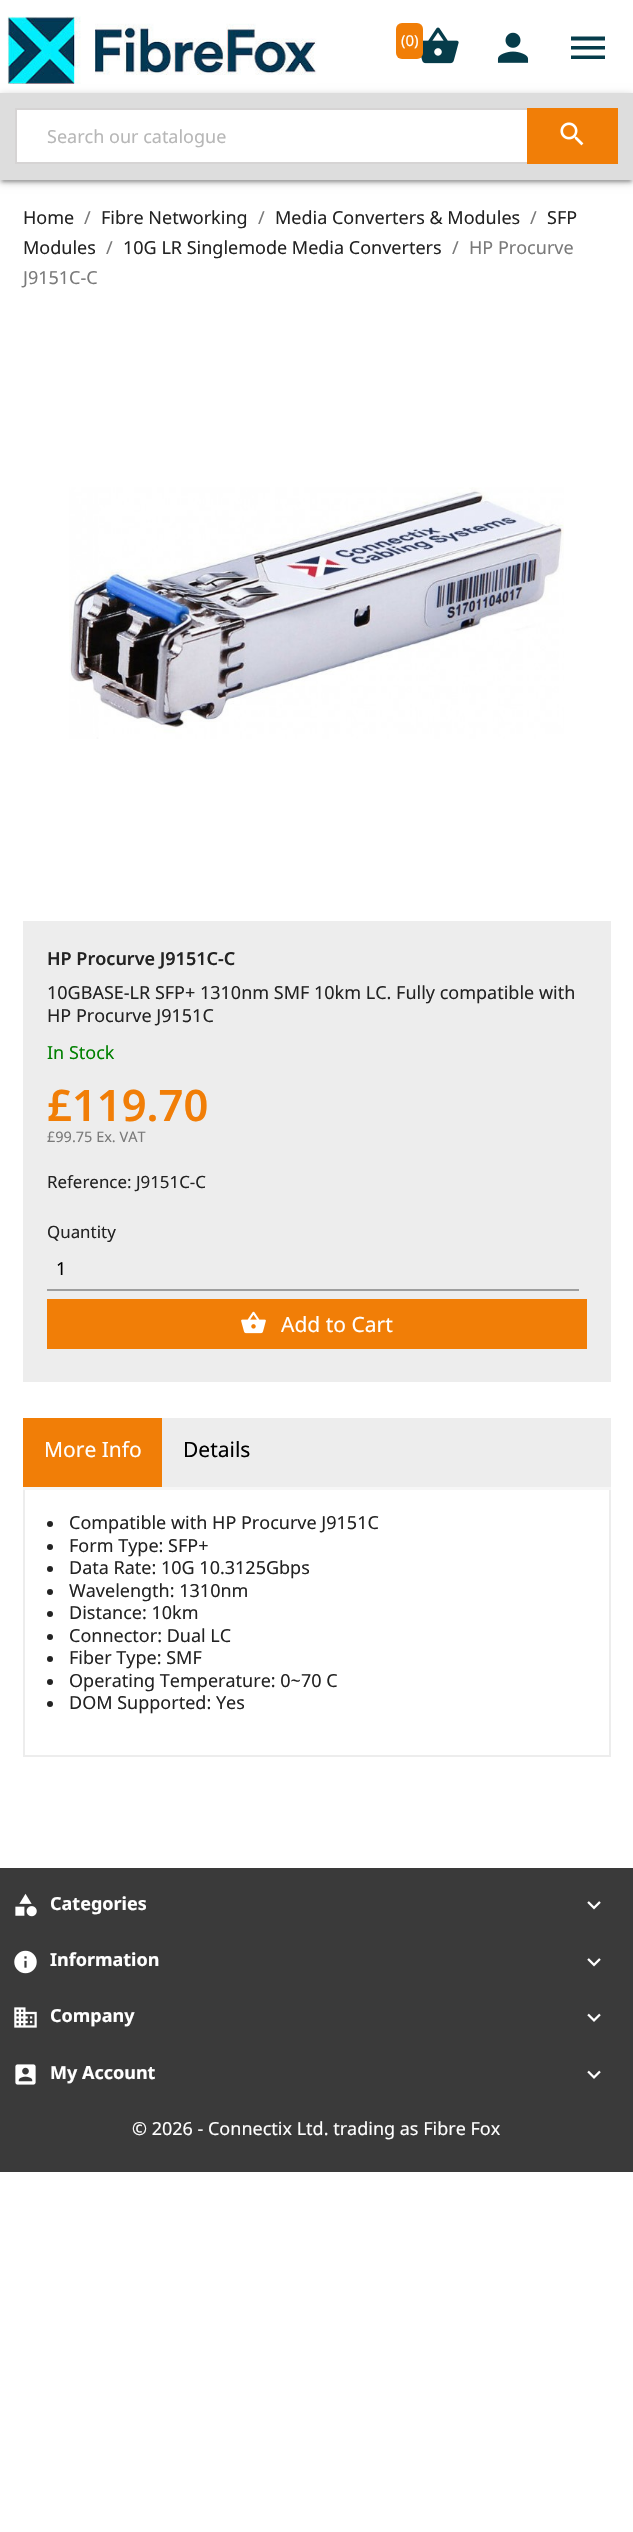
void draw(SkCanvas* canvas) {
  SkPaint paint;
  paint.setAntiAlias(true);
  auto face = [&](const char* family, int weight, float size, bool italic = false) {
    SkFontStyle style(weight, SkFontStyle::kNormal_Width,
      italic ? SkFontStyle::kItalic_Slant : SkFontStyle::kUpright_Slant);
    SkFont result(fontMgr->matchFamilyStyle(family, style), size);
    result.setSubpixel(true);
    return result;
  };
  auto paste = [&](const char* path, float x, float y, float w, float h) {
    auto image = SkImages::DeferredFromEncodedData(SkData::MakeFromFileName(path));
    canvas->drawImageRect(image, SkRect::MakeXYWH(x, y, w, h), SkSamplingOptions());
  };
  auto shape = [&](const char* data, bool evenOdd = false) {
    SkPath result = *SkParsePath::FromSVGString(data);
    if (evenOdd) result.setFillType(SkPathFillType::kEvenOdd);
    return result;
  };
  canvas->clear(0xffffffff);
  paint.setColor(0x33000000);
  paint.setMaskFilter(SkMaskFilter::MakeBlur(kNormal_SkBlurStyle, 4));
  canvas->drawRect(SkRect::MakeXYWH(0, 95, 633, 87), paint);
  paint.setMaskFilter(nullptr);
  paste("img/1.png", 7, 16, 310, 68);
  paste("img/2.png", 421, 27, 38, 37);
  paint.setColor(0xfff17e07);
  canvas->drawRoundRect(SkRect::MakeXYWH(396, 23, 27, 36), 6, 6, paint);
  paste("img/3.png", 497, 32, 32, 31);
  paint.setColor(0xff063c4a);
  canvas->drawPath(shape("M571 36.5H605V40.5H571ZM571 49.5V46H605V49.5ZM571 59V55.5H605V59Z"), paint);
  paint.setColor(0x1f000000);
  paint.setMaskFilter(SkMaskFilter::MakeBlur(kNormal_SkBlurStyle, 1));
  canvas->drawRect(SkRect::MakeXYWH(3, 101, 627, 81), paint);
  paint.setMaskFilter(nullptr);
  paint.setColor(0x24000000);
  paint.setMaskFilter(SkMaskFilter::MakeBlur(kNormal_SkBlurStyle, 1.5f));
  canvas->drawRect(SkRect::MakeXYWH(0, 96, 633, 87), paint);
  paint.setMaskFilter(nullptr);
  paint.setColor(0xffdddddd);
  canvas->drawRect(SkRect::MakeXYWH(0, 93, 633, 87), paint);
  paint.setColor(0xffffffff);
  canvas->drawRect(SkRect::MakeXYWH(17, 110, 510, 52), paint);
  paint.setStroke(true);
  paint.setStrokeWidth(2);
  paint.setColor(0xffd6d4d4);
  canvas->drawRect(SkRect::MakeXYWH(16, 109, 601, 54), paint);
  paint.setStroke(false);
  paint.setColor(0xfff17e07);
  canvas->drawRect(SkRect::MakeXYWH(527, 108, 91, 56), paint);
  paste("img/4.png", 560, 122, 24, 24);
  paste("img/5.png", 69, 487, 495, 252);
  {
    const struct { float x, y, w, h; SkColor color; } items[] = {
      {23, 921, 588, 461, 0xffededed},
      {47, 1289, 532, 2, 0xff9e9e9e},
      {47, 1299, 540, 50, 0xfff17e07},
    };
    for (auto [x, y, w, h, color] : items) {
      paint.setColor(color);
      canvas->drawRect(SkRect::MakeXYWH(x, y, w, h), paint);
    }
  }
  paste("img/6.png", 241, 1311, 25, 23);
  {
    const struct { float x, y, w, h; SkColor color; } items[] = {
      {162, 1418, 449, 69, 0xffededed},
      {23, 1487, 588, 3, 0xfff6f6f6},
      {23, 1418, 139, 69, 0xfff17e07},
      {609, 1490, 2, 267, 0xffededed},
      {23, 1755, 588, 2, 0xffededed},
      {23, 1490, 2, 267, 0xffededed},
    };
    for (auto [x, y, w, h, color] : items) {
      paint.setColor(color);
      canvas->drawRect(SkRect::MakeXYWH(x, y, w, h), paint);
    }
  }
  paint.setColor(0xff232323);
  canvas->drawCircle(50, 1524, 3, paint);
  canvas->drawCircle(50, 1547, 3, paint);
  canvas->drawCircle(50, 1569, 3, paint);
  canvas->drawCircle(50, 1592, 3, paint);
  canvas->drawCircle(50, 1614, 3, paint);
  canvas->drawCircle(50, 1637, 3, paint);
  canvas->drawCircle(50, 1659, 3, paint);
  canvas->drawCircle(50, 1682, 3, paint);
  canvas->drawCircle(50, 1704, 3, paint);
  paint.setColor(0xff3a3a3a);
  canvas->drawRect(SkRect::MakeXYWH(0, 1868, 633, 304), paint);
  paste("img/7.png", 15, 1893, 22, 24);
  paste("img/8.png", 587, 1901, 14, 9);
  paste("img/9.png", 14, 1950, 23, 24);
  paste("img/8.png", 587, 1958, 14, 9);
  paste("img/10.png", 14, 2007, 23, 21);
  paste("img/11.png", 587, 2013, 14, 9);
  paste("img/12.png", 15, 2064, 21, 21);
  paste("img/11.png", 587, 2070, 14, 9);
  auto f0 = face("Noto Sans", 400, 15);
  paint.setColor(0xffffffff);
  canvas->drawString("(0)", 401, 46, f0, paint);
  auto f1 = face("Noto Sans", 400, 18);
  paint.setColor(0xffb7b7b7);
  canvas->drawString("Search our catalogue", 47, 143, f1, paint);
  paint.setColor(0xff232323);
  canvas->drawString("Home", 23, 224, f1, paint);
  paint.setColor(0xff7a7a7a);
  canvas->drawString("/", 84, 224, f1, paint);
  paint.setColor(0xff232323);
  canvas->drawString("Fibre Networking", 101, 224, f1, paint);
  paint.setColor(0xff7a7a7a);
  canvas->drawString("/", 258, 224, f1, paint);
  paint.setColor(0xff232323);
  canvas->drawString("Media Converters & Modules", 275, 224, f1, paint);
  paint.setColor(0xff7a7a7a);
  canvas->drawString("/", 530, 224, f1, paint);
  paint.setColor(0xff232323);
  canvas->drawString("SFP", 547, 224, f1, paint);
  canvas->drawString("Modules", 23, 254, f1, paint);
  paint.setColor(0xff7a7a7a);
  canvas->drawString("/", 106, 254, f1, paint);
  paint.setColor(0xff232323);
  canvas->drawString("10G LR Singlemode Media Converters", 123, 254, f1, paint);
  paint.setColor(0xff7a7a7a);
  {
    const struct { const char* s; float x, y; } items[] = {
      {"/", 452, 254},
      {"HP Procurve", 469, 254},
      {"J9151C-C", 23, 284},
    };
    for (auto [s, x, y] : items) {
      canvas->drawString(s, x, y, f1, paint);
    }
  }
  auto f2 = face("Noto Sans", 600, 18);
  paint.setColor(0xff232323);
  canvas->drawString("HP Procurve J9151C-C", 47, 965, f2, paint);
  canvas->drawString("10GBASE-LR SFP+ 1310nm SMF 10km LC. Fully compatible with", 47, 999, f1, paint);
  canvas->drawString("HP Procurve J9151C", 47, 1022, f1, paint);
  paint.setColor(0xff008000);
  canvas->drawString("In Stock", 47, 1059, f1, paint);
  auto f3 = face("Noto Sans", 600, 43.5f);
  paint.setColor(0xfff17e07);
  canvas->drawString("£119.70", 47, 1121, f3, paint);
  auto f4 = face("Noto Sans", 400, 14.5f);
  paint.setColor(0xff7a7a7a);
  canvas->drawString("£99.75 Ex. VAT", 47, 1142, f4, paint);
  auto f5 = face("Noto Sans", 400, 16.9f);
  paint.setColor(0xff232323);
  canvas->drawString("Reference: J9151C-C", 47, 1188, f5, paint);
  canvas->drawString("Quantity", 47, 1238, f5, paint);
  paint.setColor(0xff000000);
  canvas->drawString("1", 56, 1275, f1, paint);
  auto f6 = face("Noto Sans", 400, 21);
  paint.setColor(0xffffffff);
  canvas->drawString("Add to Cart", 281, 1332, f6, paint);
  canvas->drawString("More Info", 44, 1457, f6, paint);
  paint.setColor(0xff000000);
  canvas->drawString("Details", 183, 1457, f6, paint);
  paint.setColor(0xff232323);
  {
    const struct { const char* s; float x, y; } items[] = {
      {"Compatible with HP Procurve J9151C", 69, 1529},
      {"Form Type: SFP+", 69, 1552},
      {"Data Rate: 10G 10.3125Gbps", 69, 1574},
      {"Wavelength: 1310nm", 69, 1597},
      {"Distance: 10km", 69, 1619},
      {"Connector: Dual LC", 69, 1642},
      {"Fiber Type: SMF", 69, 1664},
      {"Operating Temperature: 0~70 C", 69, 1687},
      {"DOM Supported: Yes", 69, 1709},
    };
    for (auto [s, x, y] : items) {
      canvas->drawString(s, x, y, f1, paint);
    }
  }
  auto f7 = face("Noto Sans", 700, 18);
  paint.setColor(0xffffffff);
  {
    const struct { const char* s; float x, y; } items[] = {
      {"Categories", 50, 1910},
      {"Information", 50, 1966},
      {"Company", 50, 2022},
      {"My Account", 50, 2079},
    };
    for (auto [s, x, y] : items) {
      canvas->drawString(s, x, y, f7, paint);
    }
  }
  canvas->drawString("© 2026 - Connectix Ltd. trading as Fibre Fox", 132, 2135, f1, paint);
}
